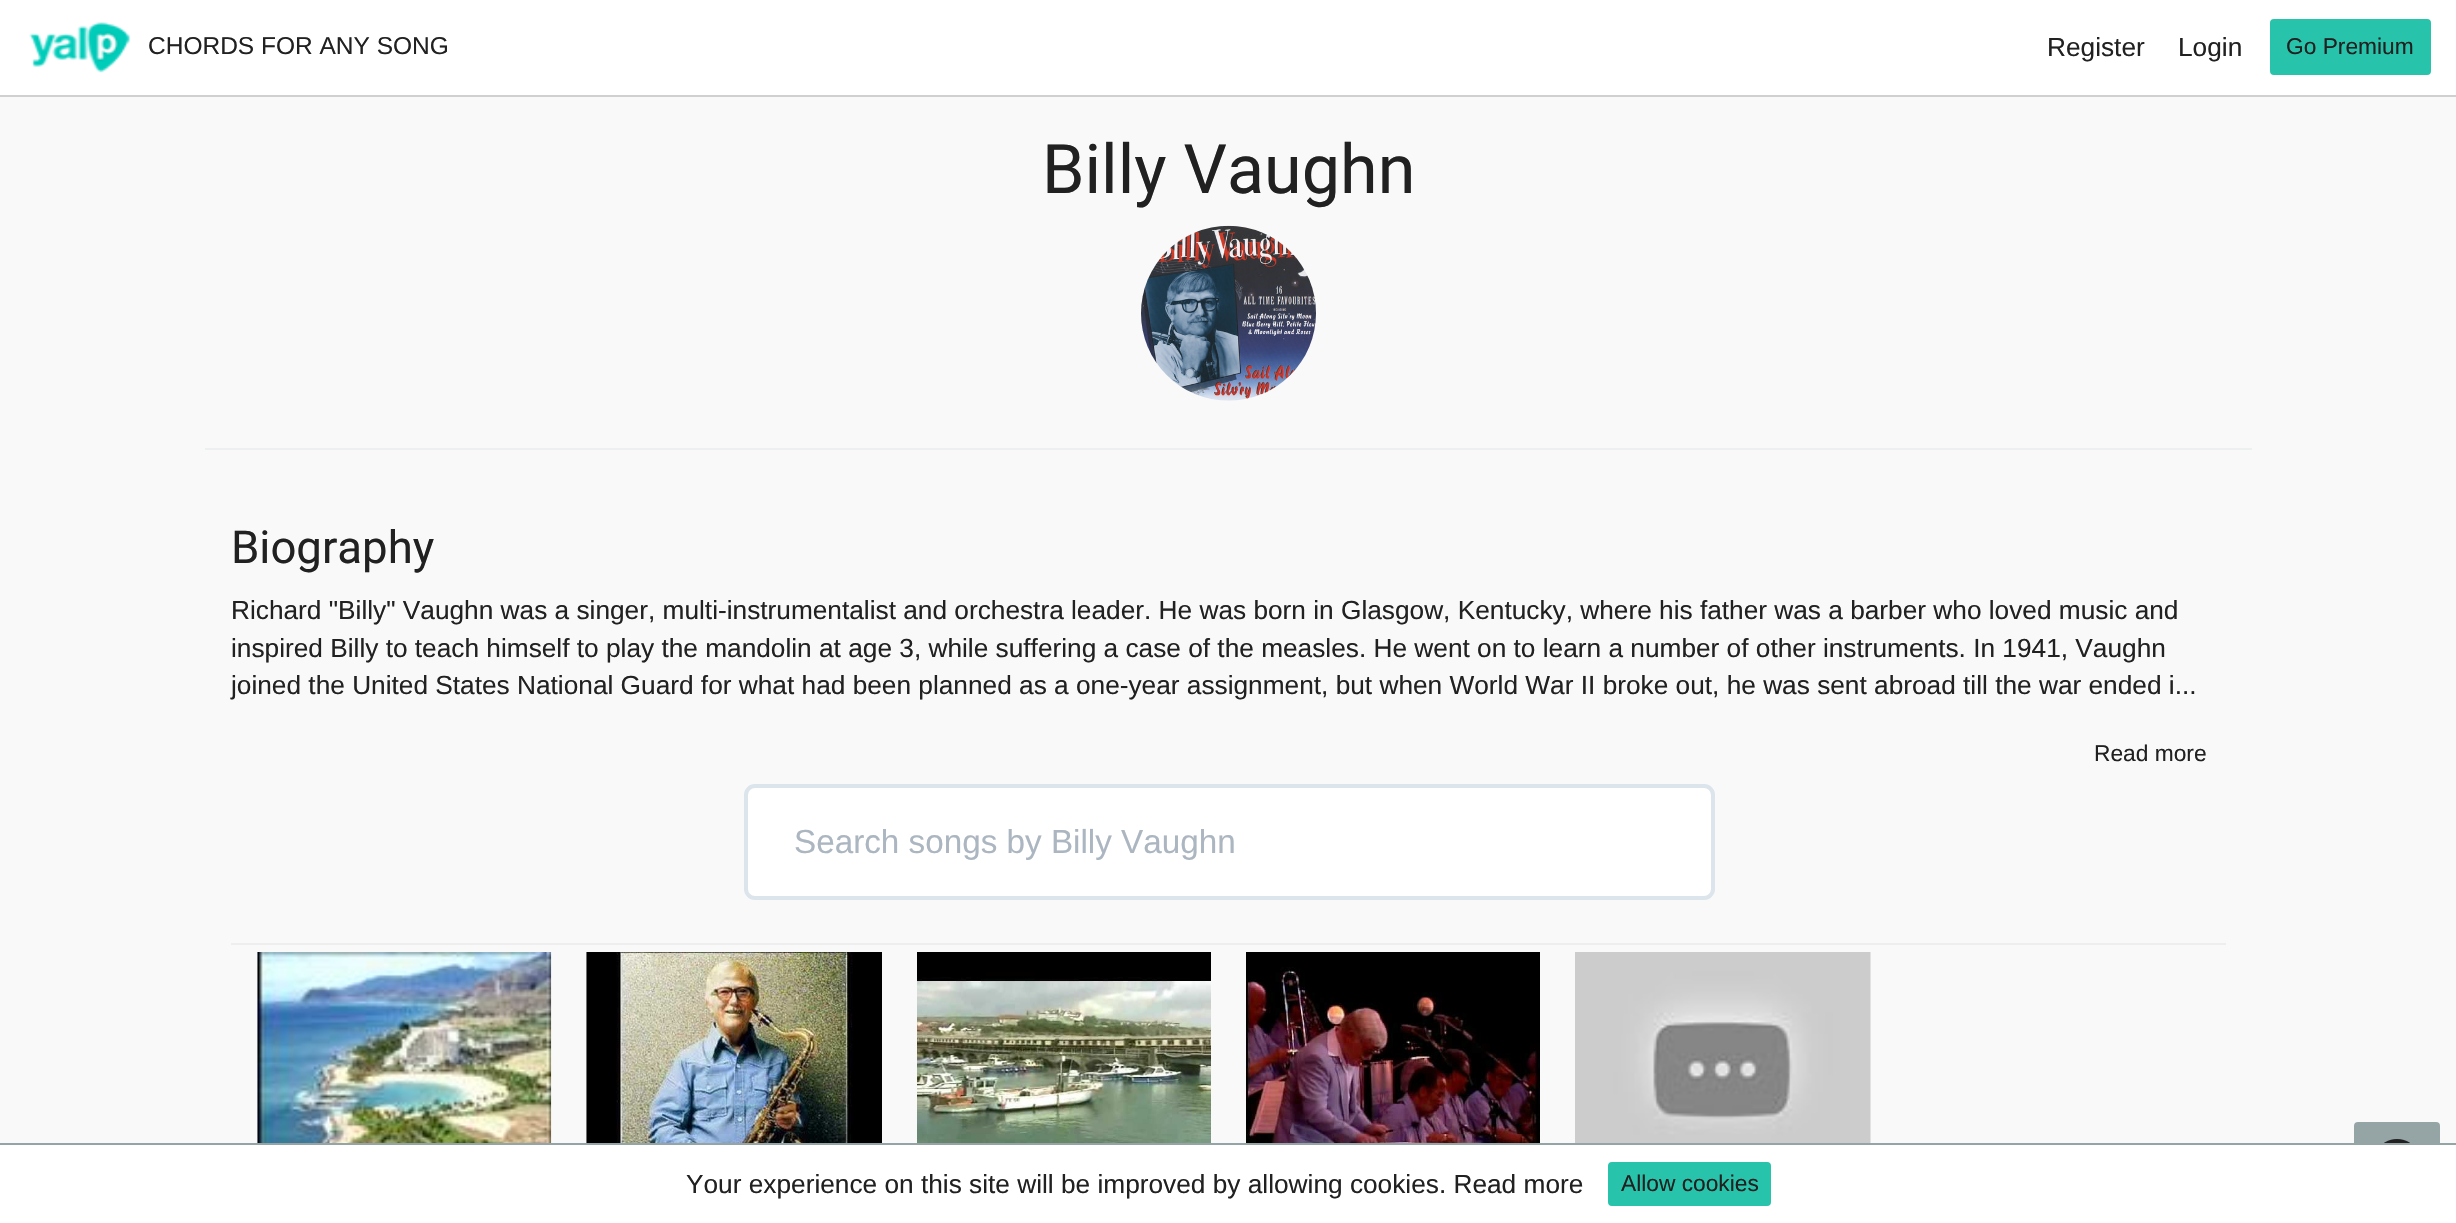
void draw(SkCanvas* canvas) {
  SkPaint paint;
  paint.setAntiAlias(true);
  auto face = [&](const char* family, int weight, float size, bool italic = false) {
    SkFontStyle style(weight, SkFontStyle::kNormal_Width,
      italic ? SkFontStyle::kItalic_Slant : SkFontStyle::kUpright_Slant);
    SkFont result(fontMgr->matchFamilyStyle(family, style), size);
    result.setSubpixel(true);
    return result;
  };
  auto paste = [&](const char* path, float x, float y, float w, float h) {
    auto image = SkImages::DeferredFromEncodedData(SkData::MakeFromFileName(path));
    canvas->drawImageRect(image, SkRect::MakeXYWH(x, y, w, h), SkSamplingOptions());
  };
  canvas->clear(0xfff9f9f9);
  paint.setColor(0xffffffff);
  canvas->drawRect(SkRect::MakeXYWH(0, 0, 2456, 95), paint);
  paint.setColor(0xffd0d0d0);
  canvas->drawRect(SkRect::MakeXYWH(0, 95, 2456, 2), paint);
  paste("img/1.png", 29, 22, 101, 51);
  paint.setColor(0xff28c3ab);
  canvas->drawRoundRect(SkRect::MakeXYWH(2272, 21, 157, 52), 2, 2, paint);
  paint.setStroke(true);
  paint.setStrokeWidth(4);
  canvas->drawRoundRect(SkRect::MakeXYWH(2272, 21, 157, 52), 2, 2, paint);
  paint.setStroke(false);
  paint.setColor(0xff95a5a6);
  canvas->drawRoundRect(SkRect::MakeXYWH(2356, 1124, 82, 80), 2, 2, paint);
  paint.setStroke(true);
  canvas->drawRoundRect(SkRect::MakeXYWH(2356, 1124, 82, 80), 2, 2, paint);
  paint.setStroke(false);
  canvas->drawRect(SkRect::MakeXYWH(0, 1143, 2456, 2), paint);
  paint.setColor(0xffffffff);
  canvas->drawRect(SkRect::MakeXYWH(0, 1145, 2456, 78), paint);
  paint.setColor(0xff28c3ab);
  canvas->drawRoundRect(SkRect::MakeXYWH(1610, 1164, 159, 40), 2, 2, paint);
  paint.setStroke(true);
  canvas->drawRoundRect(SkRect::MakeXYWH(1610, 1164, 159, 40), 2, 2, paint);
  paste("img/2.png", 1141, 225, 175, 176);
  paint.setStroke(false);
  paint.setColor(0xffecf0f1);
  canvas->drawRect(SkRect::MakeXYWH(205, 448, 2047, 2), paint);
  paint.setColor(0xffffffff);
  canvas->drawRoundRect(SkRect::MakeXYWH(746, 786, 967, 112), 9, 9, paint);
  paint.setStroke(true);
  paint.setColor(0xffdce4ec);
  canvas->drawRoundRect(SkRect::MakeXYWH(746, 786, 967, 112), 9, 9, paint);
  paint.setStroke(false);
  paint.setColor(0xffeeeeee);
  canvas->drawRect(SkRect::MakeXYWH(231, 943, 1995, 2), paint);
  paint.setColor(0xffffffff);
  canvas->drawRect(SkRect::MakeXYWH(257, 952, 1, 191), paint);
  paste("img/3.png", 257, 952, 295, 191);
  canvas->drawRect(SkRect::MakeXYWH(586, 952, 1, 191), paint);
  paste("img/4.png", 586, 952, 296, 191);
  paste("img/5.png", 917, 952, 294, 191);
  paste("img/6.png", 1246, 952, 294, 191);
  canvas->drawRect(SkRect::MakeXYWH(1870, 952, 1, 191), paint);
  paste("img/7.png", 1575, 952, 296, 191);
  paste("img/8.png", 2384, 1139, 26, 4);
  auto f0 = face("Liberation Sans", 400, 24.5f);
  paint.setColor(0xff212121);
  canvas->drawString("CHORDS FOR ANY SONG", 148, 54, f0, paint);
  auto f1 = face("Liberation Sans", 400, 26.25f);
  canvas->drawString("Register", 2047, 56, f1, paint);
  canvas->drawString("Login", 2178, 56, f1, paint);
  auto f2 = face("Liberation Sans", 400, 22.75f);
  canvas->drawString("Go Premium", 2286, 54, f2, paint);
  canvas->drawString("Your experience on this site will be improved by allowing cookies. Read more", 686, 1193, f1, paint);
  canvas->drawString("Allow cookies", 1621, 1191, f2, paint);
  auto f3 = face("Roboto", 400, 68.25f);
  canvas->drawString("Billy Vaughn", 1042, 193, f3, paint);
  auto f4 = face("Roboto", 400, 45.5f);
  canvas->drawString("Biography", 231, 563, f4, paint);
  {
    const struct { const char* s; float x, y; } items[] = {
      {"Richard \"Billy\" Vaughn was a singer, multi-instrumentalist and orchestra leader. He was born in Glasgow, Kentucky, where his father was a barber who loved music and", 231, 619},
      {"inspired Billy to teach himself to play the mandolin at age 3, while suffering a case of the measles. He went on to learn a number of other instruments. In 1941, Vaughn", 231, 657},
      {"joined the United States National Guard for what had been planned as a one-year assignment, but when World War II broke out, he was sent abroad till the war ended i...", 231, 694},
    };
    for (auto [s, x, y] : items) {
      canvas->drawString(s, x, y, f1, paint);
    }
  }
  canvas->drawString("Read more", 2094, 761, f2, paint);
  auto f5 = face("Liberation Sans", 400, 33.25f);
  paint.setColor(0xffacb6c0);
  canvas->drawString("Search songs by Billy Vaughn", 794, 853, f5, paint);
}
